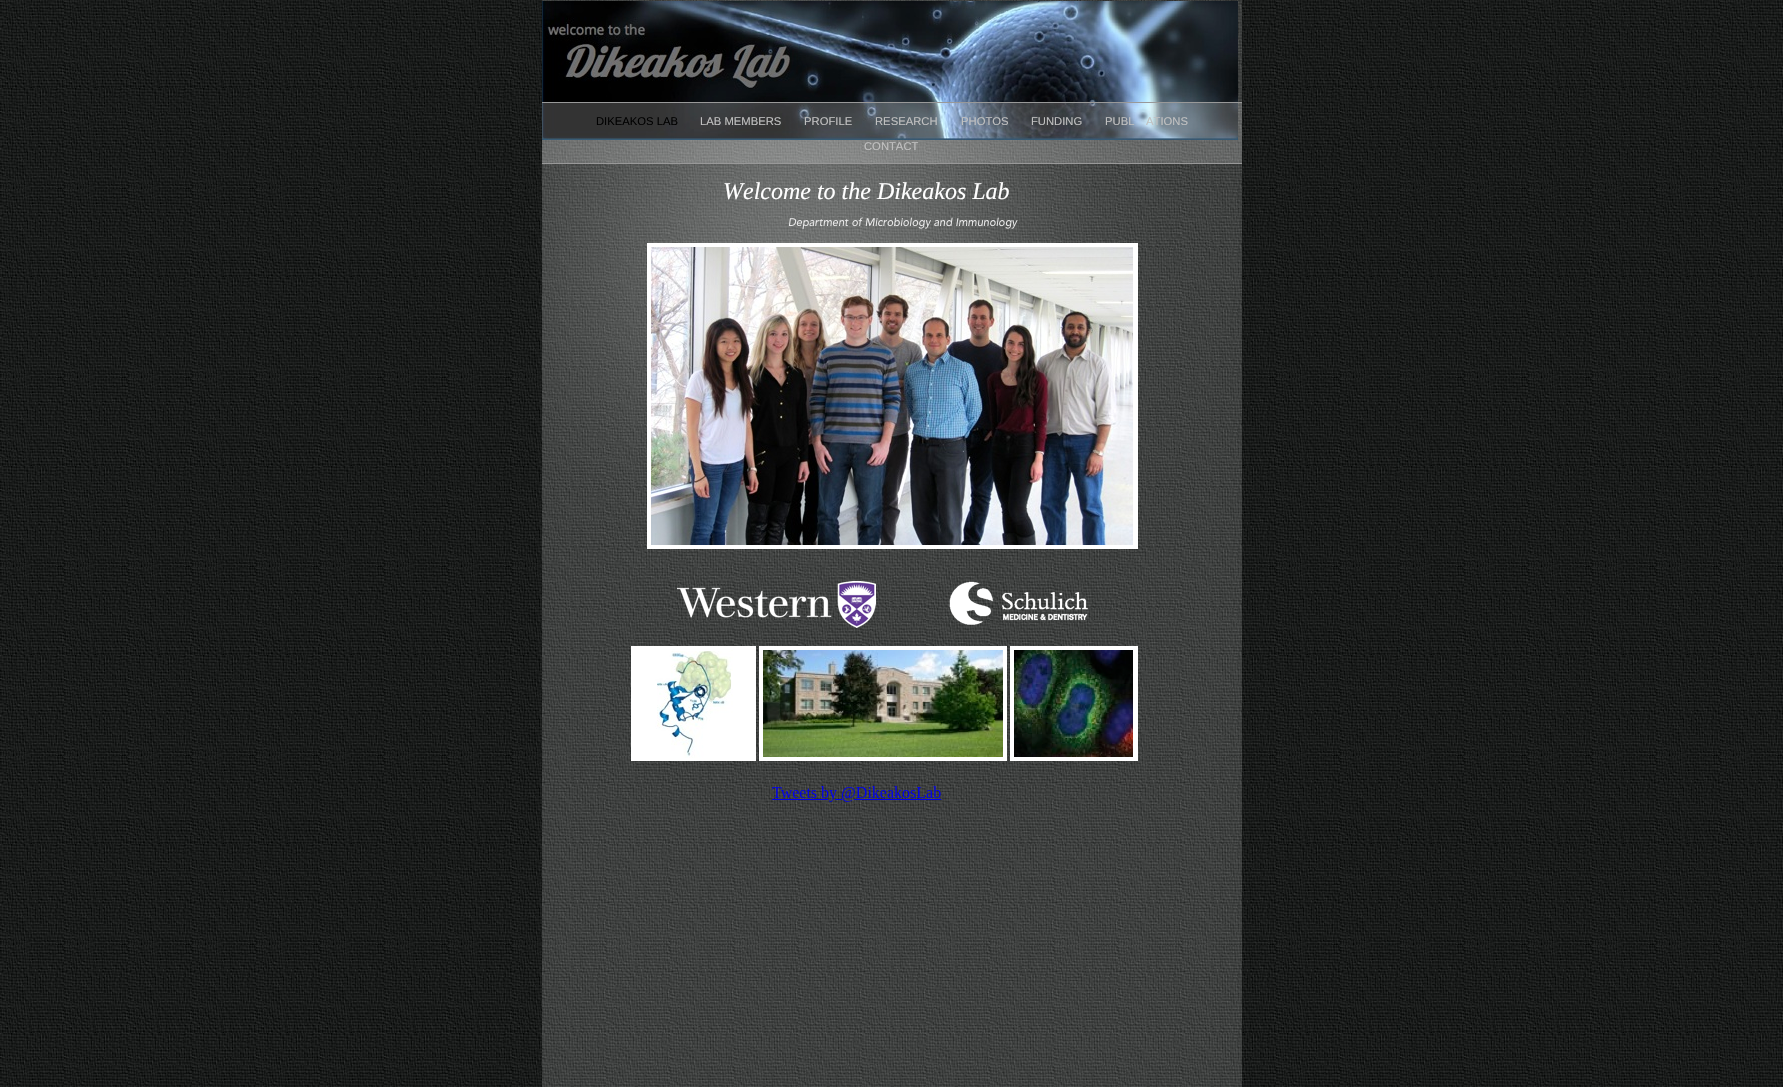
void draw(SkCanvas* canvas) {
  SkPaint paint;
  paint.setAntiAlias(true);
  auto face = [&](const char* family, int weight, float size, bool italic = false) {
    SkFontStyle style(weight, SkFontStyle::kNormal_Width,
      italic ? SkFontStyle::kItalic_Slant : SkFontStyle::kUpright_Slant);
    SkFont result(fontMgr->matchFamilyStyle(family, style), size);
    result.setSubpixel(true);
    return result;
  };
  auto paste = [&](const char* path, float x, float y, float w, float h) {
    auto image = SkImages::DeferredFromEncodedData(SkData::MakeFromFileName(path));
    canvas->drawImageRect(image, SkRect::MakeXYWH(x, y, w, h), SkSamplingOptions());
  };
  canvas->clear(0xffffffff);
  paste("img/1.png", 0, 0, 1783, 1087);
  paste("img/2.png", 542, 620, 700, 467);
  paste("img/3.png", 542, 0, 700, 620);
  paste("img/4.png", 542, 1, 696, 139);
  {
    const struct { float x, y, w, h; SkColor color; } items[] = {
      {542, 103, 700, 60, 0x33ffffff},
      {542, 102, 700, 1, 0xff999999},
      {542, 163, 700, 1, 0xff999999},
    };
    for (auto [x, y, w, h, color] : items) {
      paint.setColor(color);
      canvas->drawRect(SkRect::MakeXYWH(x, y, w, h), paint);
    }
  }
  paste("img/5.png", 788, 217, 230, 13);
  paint.setColor(0xffffffff);
  canvas->drawRect(SkRect::MakeXYWH(647, 243, 4, 302), paint);
  canvas->drawRect(SkRect::MakeXYWH(651, 243, 487, 4), paint);
  paste("img/6.png", 651, 247, 482, 298);
  canvas->drawRect(SkRect::MakeXYWH(1133, 247, 5, 302), paint);
  canvas->drawRect(SkRect::MakeXYWH(647, 545, 486, 4), paint);
  paste("img/7.png", 677, 581, 199, 47);
  paste("img/8.png", 949, 581, 139, 44);
  {
    const struct { float x, y, w, h; SkColor color; } items[] = {
      {633, 648, 121, 111, 0xffffffff},
      {631, 646, 4, 4, 0xffffffff},
      {635, 646, 117, 2, 0xffffffff},
      {752, 646, 4, 4, 0xffffffff},
      {631, 650, 2, 107, 0xffffffff},
      {754, 650, 2, 107, 0xffffffff},
      {631, 757, 4, 4, 0xffffffff},
      {635, 759, 117, 2, 0xffffffff},
      {752, 757, 4, 4, 0xffffffff},
      {759, 646, 4, 111, 0xffffffff},
      {763, 646, 244, 4, 0xffffffff},
    };
    for (auto [x, y, w, h, color] : items) {
      paint.setColor(color);
      canvas->drawRect(SkRect::MakeXYWH(x, y, w, h), paint);
    }
  }
  paste("img/9.png", 763, 650, 240, 107);
  {
    const struct { float x, y, w, h; SkColor color; } items[] = {
      {1003, 650, 4, 111, 0xffffffff},
      {759, 757, 244, 4, 0xffffffff},
      {1010, 646, 4, 111, 0xffffffff},
      {1014, 646, 124, 4, 0xffffffff},
    };
    for (auto [x, y, w, h, color] : items) {
      paint.setColor(color);
      canvas->drawRect(SkRect::MakeXYWH(x, y, w, h), paint);
    }
  }
  paste("img/10.png", 1014, 650, 119, 107);
  canvas->drawRect(SkRect::MakeXYWH(1133, 650, 5, 111), paint);
  canvas->drawRect(SkRect::MakeXYWH(1010, 757, 123, 4), paint);
  paste("img/11.png", 655, 649, 78, 109);
  {
    const struct { float x, y, w, h; SkColor color; } items[] = {
      {675, 649, 56, 2, 0xffffffff},
      {731, 649, 2, 1, 0xffffffff},
      {655, 681, 2, 40, 0xffffffff},
    };
    for (auto [x, y, w, h, color] : items) {
      paint.setColor(color);
      canvas->drawRect(SkRect::MakeXYWH(x, y, w, h), paint);
    }
  }
  paste("img/12.png", 731, 671, 2, 18);
  canvas->drawRect(SkRect::MakeXYWH(688, 757, 1, 1), paint);
  paste("img/13.png", 772, 786, 170, 16);
  auto f0 = face("Liberation Sans", 400, 11.25f);
  paint.setColor(0xff000000);
  canvas->drawString("DIKEAKOS LAB", 596, 125, f0, paint);
  paint.setColor(0xffc1c1c1);
  {
    const struct { const char* s; float x, y; } items[] = {
      {"LAB MEMBERS", 700, 125},
      {"PROFILE", 804, 125},
      {"RESEARCH", 875, 125},
      {"PHOTOS", 961, 125},
      {"FUNDING", 1031, 125},
      {"PUBL", 1105, 125},
      {"ATIONS", 1146, 125},
      {"CONTACT", 864, 150},
    };
    for (auto [s, x, y] : items) {
      canvas->drawString(s, x, y, f0, paint);
    }
  }
  auto f1 = face("Liberation Serif", 400, 24, true);
  paint.setColor(0xffffffff);
  canvas->drawString("Welcome to the Dikeakos Lab", 723, 199, f1, paint);
}
